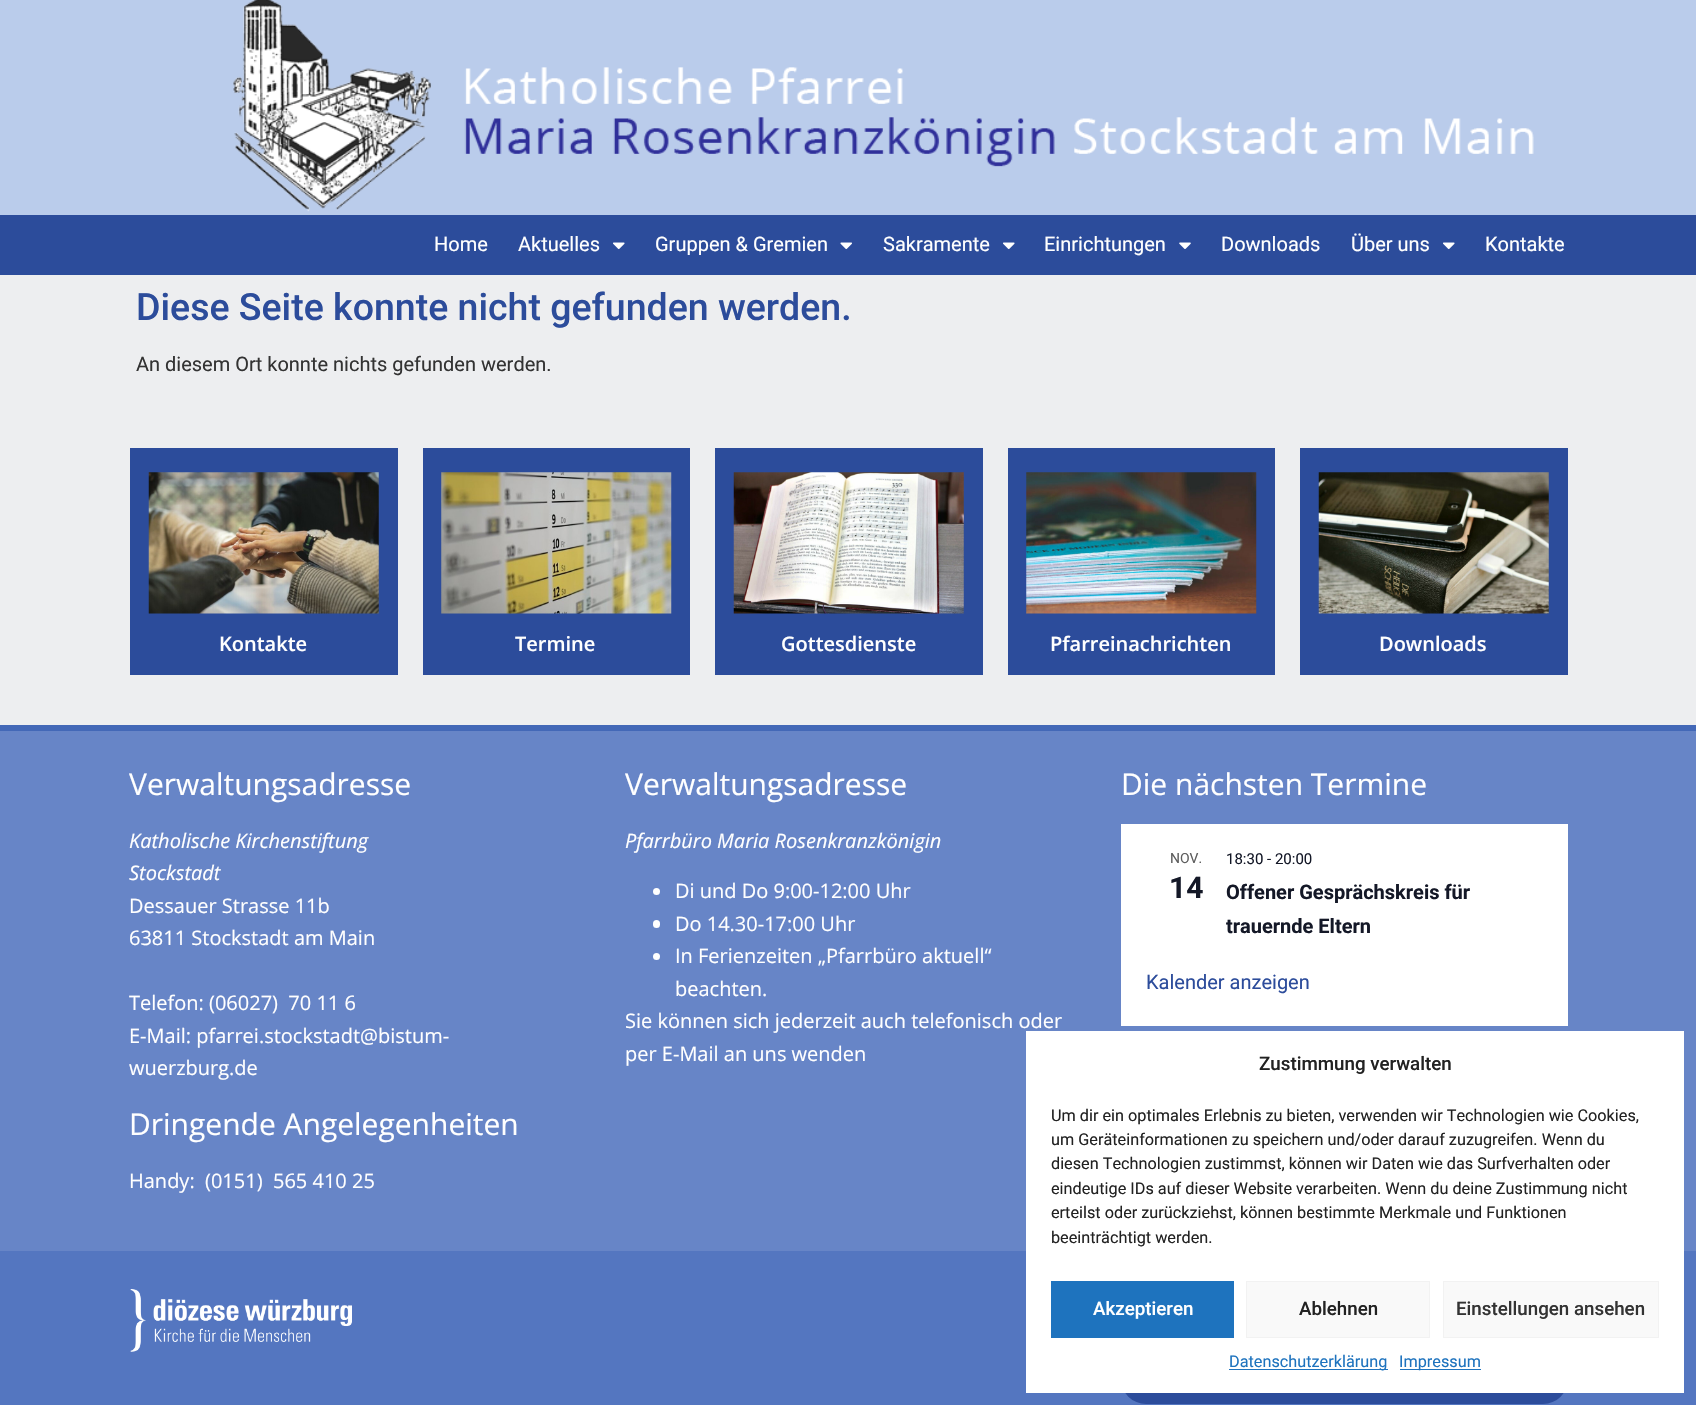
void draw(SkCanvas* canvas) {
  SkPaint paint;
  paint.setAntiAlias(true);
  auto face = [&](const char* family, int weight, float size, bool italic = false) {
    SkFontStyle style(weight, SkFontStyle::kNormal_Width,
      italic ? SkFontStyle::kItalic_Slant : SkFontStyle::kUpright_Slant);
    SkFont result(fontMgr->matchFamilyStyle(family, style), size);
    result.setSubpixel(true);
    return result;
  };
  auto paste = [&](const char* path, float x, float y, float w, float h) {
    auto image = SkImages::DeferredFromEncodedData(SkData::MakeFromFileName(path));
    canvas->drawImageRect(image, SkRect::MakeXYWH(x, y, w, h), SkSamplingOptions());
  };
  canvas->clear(0xffedeef0);
  paint.setColor(0xffbacceb);
  canvas->drawRect(SkRect::MakeXYWH(0, 0, 1696, 215), paint);
  paste("img/1.png", 233, 0, 1301, 212);
  paint.setColor(0xff2c4c9b);
  canvas->drawRect(SkRect::MakeXYWH(0, 215, 1696, 60), paint);
  paste("img/2.png", 613, 242, 12, 8);
  paste("img/3.png", 840, 242, 12, 8);
  paste("img/2.png", 1003, 242, 12, 8);
  paste("img/4.png", 1179, 242, 12, 7);
  paste("img/2.png", 1443, 242, 12, 8);
  canvas->drawRect(SkRect::MakeXYWH(130, 448, 268, 227), paint);
  paste("img/5.png", 148, 472, 231, 142);
  canvas->drawRect(SkRect::MakeXYWH(423, 448, 267, 227), paint);
  paste("img/6.png", 441, 472, 231, 142);
  canvas->drawRect(SkRect::MakeXYWH(715, 448, 268, 227), paint);
  paste("img/7.png", 733, 472, 231, 142);
  canvas->drawRect(SkRect::MakeXYWH(1008, 448, 267, 227), paint);
  paste("img/8.png", 1026, 472, 231, 142);
  canvas->drawRect(SkRect::MakeXYWH(1300, 448, 268, 227), paint);
  paste("img/9.png", 1318, 472, 231, 142);
  paint.setColor(0xff6785c7);
  canvas->drawRect(SkRect::MakeXYWH(0, 731, 1696, 520), paint);
  paint.setColor(0xff4368b7);
  canvas->drawRect(SkRect::MakeXYWH(0, 725, 1696, 6), paint);
  paint.setColor(0xffffffff);
  canvas->drawCircle(656.5f, 891.5f, 3.5f, paint);
  canvas->drawRoundRect(SkRect::MakeXYWH(653, 920, 7, 8), 3.5f, 3.5f, paint);
  canvas->drawCircle(656.5f, 956.5f, 3.5f, paint);
  canvas->drawRect(SkRect::MakeXYWH(1121, 824, 447, 202), paint);
  paint.setColor(0xff5476c0);
  canvas->drawRect(SkRect::MakeXYWH(0, 1251, 1696, 154), paint);
  paste("img/10.png", 130, 1289, 222, 63);
  paint.setColor(0xff2c4c9b);
  canvas->drawRoundRect(SkRect::MakeXYWH(1121, 1289, 447, 115), 25, 25, paint);
  paint.setColor(0xffffffff);
  canvas->drawRect(SkRect::MakeXYWH(1026, 1031, 658, 362), paint);
  paint.setColor(0xff1e73be);
  canvas->drawRect(SkRect::MakeXYWH(1051, 1281, 183, 57), paint);
  paint.setColor(0xfff9f9f9);
  canvas->drawRect(SkRect::MakeXYWH(1246.5f, 1281.5f, 183, 56), paint);
  paint.setStroke(true);
  paint.setStrokeWidth(1);
  paint.setColor(0xfff2f2f2);
  canvas->drawRect(SkRect::MakeXYWH(1246.5f, 1281.5f, 183, 56), paint);
  paint.setStroke(false);
  paint.setColor(0xfff9f9f9);
  canvas->drawRect(SkRect::MakeXYWH(1443.5f, 1281.5f, 215, 56), paint);
  paint.setStroke(true);
  paint.setColor(0xfff2f2f2);
  canvas->drawRect(SkRect::MakeXYWH(1443.5f, 1281.5f, 215, 56), paint);
  paint.setStroke(false);
  paint.setColor(0xff1e73be);
  canvas->drawRect(SkRect::MakeXYWH(1229, 1369, 159, 1), paint);
  canvas->drawRect(SkRect::MakeXYWH(1400, 1369, 81, 1), paint);
  auto f0 = face("Roboto", 400, 20);
  paint.setColor(0xffffffff);
  {
    const struct { const char* s; float x, y; } items[] = {
      {"Home", 434, 251},
      {"Aktuelles", 518, 251},
      {"Gruppen & Gremien", 655, 251},
      {"Sakramente", 883, 251},
      {"Einrichtungen", 1044, 251},
      {"Downloads", 1221, 251},
      {"Über uns", 1351, 251},
      {"Kontakte", 1485, 251},
    };
    for (auto [s, x, y] : items) {
      canvas->drawString(s, x, y, f0, paint);
    }
  }
  auto f1 = face("Roboto", 500, 37.5f);
  paint.setColor(0xff2c4c9b);
  canvas->drawString("Diese Seite konnte nicht gefunden werden.", 136, 320, f1, paint);
  paint.setColor(0xff333333);
  canvas->drawString("An diesem Ort konnte nichts gefunden werden.", 136, 371, f0, paint);
  auto f2 = face("Open Sans", 600, 20);
  paint.setColor(0xffffffff);
  {
    const struct { const char* s; float x, y; } items[] = {
      {"Kontakte", 219, 651},
      {"Termine", 515, 651},
      {"Gottesdienste", 781, 651},
      {"Pfarreinachrichten", 1050, 651},
      {"Downloads", 1379, 651},
    };
    for (auto [s, x, y] : items) {
      canvas->drawString(s, x, y, f2, paint);
    }
  }
  auto f3 = face("Open Sans", 400, 30);
  canvas->drawString("Verwaltungsadresse", 129, 795, f3, paint);
  auto f4 = face("Open Sans", 400, 20, true);
  canvas->drawString("Katholische Kirchenstiftung", 129, 848, f4, paint);
  canvas->drawString("Stockstadt", 129, 880, f4, paint);
  auto f5 = face("Open Sans", 400, 20);
  {
    const struct { const char* s; float x, y; } items[] = {
      {"Dessauer Strasse 11b", 129, 913},
      {"63811 Stockstadt am Main", 129, 945},
      {"Telefon: (06027)  70 11 6", 129, 1010},
      {"E-Mail: pfarrei.stockstadt@bistum-", 129, 1043},
      {"wuerzburg.de", 129, 1075},
    };
    for (auto [s, x, y] : items) {
      canvas->drawString(s, x, y, f5, paint);
    }
  }
  canvas->drawString("Dringende Angelegenheiten", 129, 1135, f3, paint);
  canvas->drawString("Handy:  (0151)  565 410 25", 129, 1188, f5, paint);
  canvas->drawString("Verwaltungsadresse", 625, 795, f3, paint);
  canvas->drawString("Pfarrbüro Maria Rosenkranzkönigin", 625, 848, f4, paint);
  {
    const struct { const char* s; float x, y; } items[] = {
      {"Di und Do 9:00-12:00 Uhr", 675, 898},
      {"Do 14.30-17:00 Uhr", 675, 931},
      {"In Ferienzeiten „Pfarrbüro aktuell“", 675, 963},
      {"beachten.", 675, 996},
      {"Sie können sich jederzeit auch telefonisch oder", 625, 1028},
      {"per E-Mail an uns wenden", 625, 1061},
    };
    for (auto [s, x, y] : items) {
      canvas->drawString(s, x, y, f5, paint);
    }
  }
  canvas->drawString("Die nächsten Termine", 1121, 795, f3, paint);
  auto f6 = face("Roboto", 400, 14);
  paint.setColor(0xff5d5d5d);
  canvas->drawString("NOV.", 1170, 863, f6, paint);
  auto f7 = face("Roboto", 700, 30);
  paint.setColor(0xff141827);
  canvas->drawString("14", 1169, 898, f7, paint);
  auto f8 = face("Roboto", 400, 15);
  canvas->drawString("18:30 - 20:00", 1226, 864, f8, paint);
  auto f9 = face("Roboto", 700, 20);
  canvas->drawString("Offener Gesprächskreis für", 1226, 899, f9, paint);
  canvas->drawString("trauernde Eltern", 1226, 933, f9, paint);
  paint.setColor(0xff2c4c9b);
  canvas->drawString("Kalender anzeigen", 1146, 989, f0, paint);
  auto f10 = face("Roboto", 500, 18.75f);
  paint.setColor(0xff222222);
  canvas->drawString("Zustimmung verwalten", 1259, 1070, f10, paint);
  auto f11 = face("Roboto", 400, 16.25f);
  {
    const struct { const char* s; float x, y; } items[] = {
      {"Um dir ein optimales Erlebnis zu bieten, verwenden wir Technologien wie Cookies,", 1051, 1121},
      {"um Geräteinformationen zu speichern und/oder darauf zuzugreifen. Wenn du", 1051, 1145},
      {"diesen Technologien zustimmst, können wir Daten wie das Surfverhalten oder", 1051, 1169},
      {"eindeutige IDs auf dieser Website verarbeiten. Wenn du deine Zustimmung nicht", 1051, 1194},
      {"erteilst oder zurückziehst, können bestimmte Merkmale und Funktionen", 1051, 1218},
      {"beeinträchtigt werden.", 1051, 1243},
    };
    for (auto [s, x, y] : items) {
      canvas->drawString(s, x, y, f11, paint);
    }
  }
  paint.setColor(0xffffffff);
  canvas->drawString("Akzeptieren", 1093, 1315, f10, paint);
  paint.setColor(0xff222222);
  canvas->drawString("Ablehnen", 1299, 1315, f10, paint);
  paint.setColor(0xff333333);
  canvas->drawString("Einstellungen ansehen", 1456, 1315, f10, paint);
  paint.setColor(0xff1e73be);
  canvas->drawString("Datenschutzerklärung", 1229, 1367, f11, paint);
  canvas->drawString("Impressum", 1399, 1367, f11, paint);
}
